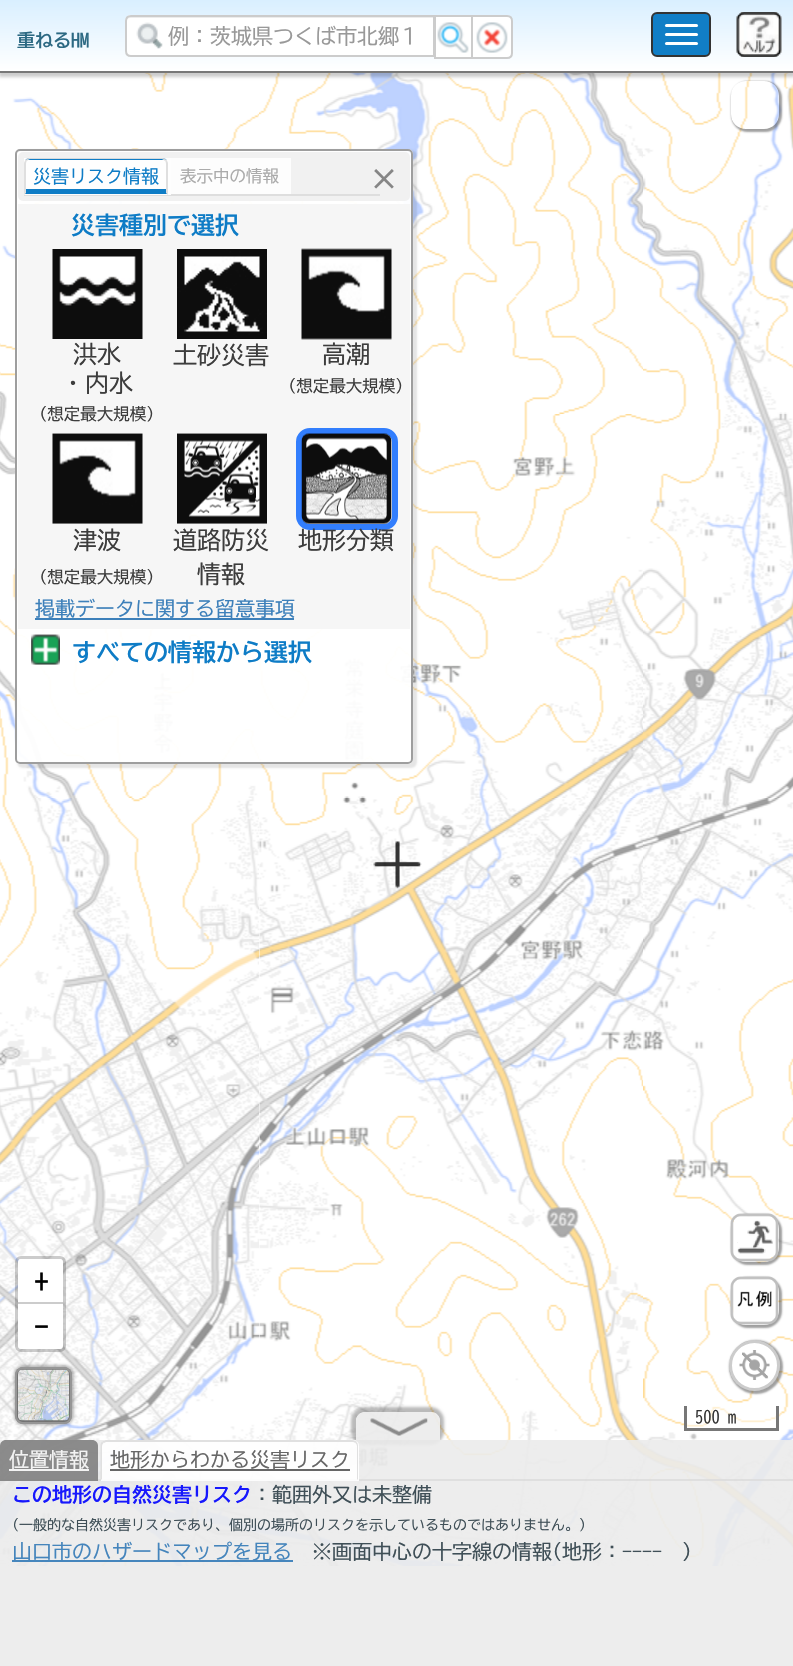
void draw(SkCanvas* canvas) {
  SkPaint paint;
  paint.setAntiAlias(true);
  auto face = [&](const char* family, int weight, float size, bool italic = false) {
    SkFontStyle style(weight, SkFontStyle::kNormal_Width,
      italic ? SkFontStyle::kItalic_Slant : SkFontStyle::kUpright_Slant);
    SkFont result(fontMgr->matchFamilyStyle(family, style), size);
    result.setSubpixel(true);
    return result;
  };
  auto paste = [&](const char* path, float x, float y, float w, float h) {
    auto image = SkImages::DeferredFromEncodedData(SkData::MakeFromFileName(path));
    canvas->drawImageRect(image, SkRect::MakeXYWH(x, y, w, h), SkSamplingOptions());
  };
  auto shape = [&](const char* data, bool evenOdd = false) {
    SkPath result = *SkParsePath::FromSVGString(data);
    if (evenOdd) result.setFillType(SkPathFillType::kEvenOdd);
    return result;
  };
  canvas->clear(0xffffffff);
  paste("img/12.png", 0, 73, 259, 341);
  paste("img/13.png", 259, 73, 384, 341);
  paste("img/14.png", 643, 73, 150, 341);
  paint.setColor(0x33000000);
  paint.setMaskFilter(SkMaskFilter::MakeBlur(kNormal_SkBlurStyle, 1.5f));
  canvas->drawRect(SkRect::MakeXYWH(-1, 2, 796, 75), paint);
  paint.setMaskFilter(nullptr);
  paint.setColor(0xff777777);
  canvas->drawRect(SkRect::MakeXYWH(0, 71, 793, 2), paint);
  {
    const SkColor colors[] = {0xffd9efff, 0xffffffff};
    const float stops[] = {0, 1};
    const SkPoint ends[] = {{397, 0}, {397, 71}};
    paint.setShader(SkGradientShader::MakeLinear(ends, colors, stops, 2, SkTileMode::kClamp));
    paint.setAlpha(255);
  }
  canvas->drawRect(SkRect::MakeXYWH(0, 0, 793, 71), paint);
  paint.setShader(nullptr);
  paint.setColor(0xffffffff);
  canvas->drawPath(shape("M131 15H435V57H131C127.5 57 125 54.5 125 51V21C125 17.5 127.5 15 131 15Z"), paint);
  paste("img/1.png", 136, 22, 27, 27);
  paint.setColor(0xffececec);
  canvas->drawPath(shape("M130 18H434V17H131C128 17 126 19 126 22C126 20 128 18 130 18Z"), paint);
  paint.setStroke(true);
  paint.setStrokeWidth(2);
  paint.setColor(0xffcccccc);
  canvas->drawPath(shape("M131 16H434V56H131C128 56 126 54 126 51V21C126 18 128 16 131 16Z"), paint);
  paint.setStroke(false);
  paint.setColor(0xffffffff);
  canvas->drawRect(SkRect::MakeXYWH(435, 16, 37, 42), paint);
  paint.setStroke(true);
  paint.setColor(0xffcccccc);
  canvas->drawRect(SkRect::MakeXYWH(435, 16, 37, 42), paint);
  paste("img/2.png", 437, 22, 32, 31);
  paint.setStroke(false);
  paint.setColor(0xffffffff);
  canvas->drawPath(shape("M472 16H507C510 16 512 18 512 21V53C512 56 510 58 507 58H472Z"), paint);
  paint.setStroke(true);
  paint.setColor(0xffcccccc);
  canvas->drawPath(shape("M472 16H507C510 16 512 18 512 21V53C512 56 510 58 507 58H472Z"), paint);
  paste("img/3.png", 476, 22, 32, 31);
  paint.setStroke(false);
  paint.setColor(0xff117ec6);
  canvas->drawRoundRect(SkRect::MakeXYWH(652, 13, 58, 43), 5, 5, paint);
  paint.setStroke(true);
  paint.setColor(0xff333333);
  canvas->drawRoundRect(SkRect::MakeXYWH(652, 13, 58, 43), 5, 5, paint);
  paint.setStroke(false);
  paint.setColor(0xffffffff);
  canvas->drawRoundRect(SkRect::MakeXYWH(665, 24, 33, 3), 1.5f, 1.5f, paint);
  canvas->drawRoundRect(SkRect::MakeXYWH(665, 33, 33, 3), 1.5f, 1.5f, paint);
  canvas->drawRoundRect(SkRect::MakeXYWH(665, 42, 33, 3), 1.5f, 1.5f, paint);
  paste("img/4.png", 736, 12, 46, 45);
  paste("img/15.png", 0, 414, 259, 384);
  paste("img/16.png", 259, 414, 384, 384);
  canvas->save();
  canvas->clipPath(shape("M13 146H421V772H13ZM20 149H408C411 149 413 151 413 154V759C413 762 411 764 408 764H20C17 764 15 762 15 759V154C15 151 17 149 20 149Z", true), true);
  paint.setColor(0x1a000000);
  paint.setMaskFilter(SkMaskFilter::MakeBlur(kNormal_SkBlurStyle, 1));
  canvas->drawRoundRect(SkRect::MakeXYWH(17, 150, 400, 618), 6, 6, paint);
  paint.setMaskFilter(nullptr);
  canvas->restore();
  paint.setColor(0xf2ffffff);
  canvas->drawRoundRect(SkRect::MakeXYWH(15, 149, 398, 615), 5, 5, paint);
  paint.setStroke(true);
  paint.setColor(0xf2999999);
  canvas->drawRoundRect(SkRect::MakeXYWH(16, 150, 396, 613), 4, 4, paint);
  paint.setStroke(false);
  paint.setColor(0xf2f0f0f0);
  canvas->drawRoundRect(SkRect::MakeXYWH(18, 152, 392, 49), 5, 5, paint);
  paint.setColor(0xffdedede);
  canvas->drawRect(SkRect::MakeXYWH(24, 194, 356, 2), paint);
  paint.setColor(0xf2fefefe);
  canvas->drawRect(SkRect::MakeXYWH(24, 158, 147, 37), paint);
  canvas->save();
  canvas->clipPath(shape("M30 158H162C165.5 158 168 160.5 168 164V195H24V164C24 160.5 26.5 158 30 158Z"), true);
  paint.setColor(0xff0f7dc6);
  canvas->drawRect(SkRect::MakeXYWH(24, 158, 144, 2), paint);
  canvas->restore();
  canvas->drawRect(SkRect::MakeXYWH(24, 189, 144, 5), paint);
  paint.setColor(0xf2dddddd);
  canvas->drawPath(shape("M30 158C29 158 27 158 26 159L27 161C28 160 29 159 30 159H162L165 161L166 159C165 158 163 158 162 158Z"), paint);
  paint.setColor(0xffdfdfdf);
  canvas->drawPath(shape("M166 159.5C167 160.5 168 162 168 164V195L166 193V164C166 162.5 165.5 161.5 165 160.5Z"), paint);
  canvas->drawPath(shape("M24 195L26 193V164C26 162.5 26.5 161.5 27 160.5L26 159.5C25 160.5 24 162 24 164Z"), paint);
  paint.setColor(0xfffdfdfd);
  canvas->drawRect(SkRect::MakeXYWH(171, 158, 120, 36), paint);
  paint.setColor(0xf2f5f5f5);
  canvas->drawRect(SkRect::MakeXYWH(18, 204, 392, 425), paint);
  paste("img/5.png", 52, 249, 91, 90);
  paste("img/6.png", 177, 249, 90, 90);
  paste("img/7.png", 301, 248, 91, 92);
  paste("img/8.png", 52, 433, 91, 91);
  paste("img/9.png", 177, 433, 90, 91);
  paint.setStroke(true);
  paint.setStrokeWidth(6);
  paint.setColor(0xff327efd);
  canvas->drawRoundRect(SkRect::MakeXYWH(299, 431, 96, 96), 11, 11, paint);
  paste("img/10.png", 301, 433, 91, 91);
  paint.setStroke(false);
  paint.setColor(0xff3d80ba);
  canvas->drawRect(SkRect::MakeXYWH(35, 618, 259, 2), paint);
  paste("img/11.png", 31, 634, 29, 31);
  paste("img/17.png", 643, 414, 150, 384);
  paste("img/18.png", 0, 798, 259, 384);
  paste("img/19.png", 259, 798, 384, 384);
  paste("img/20.png", 643, 798, 150, 384);
  paste("img/21.png", 0, 1182, 259, 384);
  paste("img/22.png", 259, 1182, 384, 384);
  paste("img/23.png", 643, 1182, 150, 384);
  paste("img/24.png", 373, 841, 49, 48);
  canvas->save();
  canvas->clipPath(shape("M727 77H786V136H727ZM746 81H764C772.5 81 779 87.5 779 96V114C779 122.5 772.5 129 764 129H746C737.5 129 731 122.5 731 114V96C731 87.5 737.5 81 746 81Z", true), true);
  paint.setColor(0x80404040);
  paint.setMaskFilter(SkMaskFilter::MakeBlur(kNormal_SkBlurStyle, 1));
  canvas->drawRoundRect(SkRect::MakeXYWH(731, 81, 51, 51), 17, 17, paint);
  paint.setMaskFilter(nullptr);
  canvas->restore();
  paint.setStroke(true);
  paint.setStrokeWidth(3);
  paint.setColor(0x33000000);
  canvas->drawRoundRect(SkRect::MakeXYWH(16.5f, 1257.5f, 48, 93), 4.5f, 4.5f, paint);
  paint.setStroke(false);
  paint.setColor(0xffffffff);
  canvas->drawPath(shape("M21 1259H60C61.5 1259 63 1260.5 63 1262V1304H18V1262C18 1260.5 19.5 1259 21 1259Z"), paint);
  paint.setColor(0xffcccccc);
  canvas->drawRect(SkRect::MakeXYWH(18, 1302, 45, 2), paint);
  paint.setColor(0xffffffff);
  canvas->drawPath(shape("M18 1304H63V1346C63 1347.5 61.5 1349 60 1349H21C19.5 1349 18 1347.5 18 1346Z"), paint);
  canvas->save();
  canvas->clipPath(shape("M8 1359H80V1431H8ZM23 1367H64C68.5 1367 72 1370.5 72 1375V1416C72 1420.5 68.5 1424 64 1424H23C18.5 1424 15 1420.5 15 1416V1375C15 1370.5 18.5 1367 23 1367Z", true), true);
  paint.setColor(0x45000000);
  paint.setMaskFilter(SkMaskFilter::MakeBlur(kNormal_SkBlurStyle, 1.5f));
  canvas->drawRoundRect(SkRect::MakeXYWH(14, 1365, 60, 60), 9, 9, paint);
  paint.setMaskFilter(nullptr);
  canvas->restore();
  paint.setColor(0xe6666666);
  canvas->drawRoundRect(SkRect::MakeXYWH(15, 1367, 57, 57), 8, 8, paint);
  paint.setStroke(true);
  paint.setStrokeWidth(2);
  paint.setColor(0xe6999999);
  canvas->drawRoundRect(SkRect::MakeXYWH(16, 1368, 55, 55), 7, 7, paint);
  paste("img/25.png", 18, 1369, 51, 52);
  canvas->save();
  canvas->clipPath(shape("M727 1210H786V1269H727ZM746 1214H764C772.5 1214 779 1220.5 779 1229V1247C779 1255.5 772.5 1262 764 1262H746C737.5 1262 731 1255.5 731 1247V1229C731 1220.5 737.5 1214 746 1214Z", true), true);
  paint.setStroke(false);
  paint.setColor(0x80404040);
  paint.setMaskFilter(SkMaskFilter::MakeBlur(kNormal_SkBlurStyle, 1));
  canvas->drawRoundRect(SkRect::MakeXYWH(731, 1214, 51, 51), 17, 17, paint);
  paint.setMaskFilter(nullptr);
  canvas->restore();
  paste("img/26.png", 730, 1213, 49, 49);
  canvas->save();
  canvas->clipPath(shape("M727 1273H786V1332H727ZM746 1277H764C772.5 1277 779 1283.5 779 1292V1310C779 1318.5 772.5 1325 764 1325H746C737.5 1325 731 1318.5 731 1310V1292C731 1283.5 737.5 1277 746 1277Z", true), true);
  paint.setMaskFilter(SkMaskFilter::MakeBlur(kNormal_SkBlurStyle, 1));
  canvas->drawRoundRect(SkRect::MakeXYWH(731, 1277, 51, 51), 17, 17, paint);
  paint.setMaskFilter(nullptr);
  canvas->restore();
  paste("img/27.png", 730, 1276, 49, 49);
  paint.setMaskFilter(SkMaskFilter::MakeBlur(kNormal_SkBlurStyle, 1));
  canvas->drawRoundRect(SkRect::MakeXYWH(729, 1340, 54, 54), 27, 27, paint);
  paint.setMaskFilter(nullptr);
  paint.setColor(0xffffffff);
  canvas->drawCircle(754.5f, 1365.5f, 25.5f, paint);
  paint.setStroke(true);
  paint.setStrokeWidth(3);
  paint.setColor(0x33000000);
  canvas->drawCircle(754.5f, 1365.5f, 24, paint);
  paste("img/28.png", 739, 1350, 31, 30);
  paint.setStroke(false);
  {
    const struct { float x, y, w, h; SkColor color; } items[] = {
      {687, 1406, 89, 21, 0x80ffffff},
      {776, 1406, 3, 25, 0xff777777},
      {684, 1428, 95, 3, 0xff777777},
      {684, 1406, 3, 25, 0xff777777},
    };
    for (auto [x, y, w, h, color] : items) {
      paint.setColor(color);
      canvas->drawRect(SkRect::MakeXYWH(x, y, w, h), paint);
    }
  }
  canvas->save();
  canvas->clipPath(shape("M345 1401H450V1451H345ZM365 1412H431C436 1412 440 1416 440 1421V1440H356V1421C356 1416 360 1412 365 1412Z", true), true);
  paint.setColor(0x45000000);
  paint.setMaskFilter(SkMaskFilter::MakeBlur(kNormal_SkBlurStyle, 1.5f));
  canvas->drawRoundRect(SkRect::MakeXYWH(351, 1407, 93, 38), 14, 14, paint);
  paint.setMaskFilter(nullptr);
  canvas->restore();
  paint.setColor(0xe6ebebeb);
  canvas->drawPath(shape("M365 1412H431C436 1412 440 1416 440 1421V1440H356V1421C356 1416 360 1412 365 1412Z"), paint);
  paste("img/29.png", 370, 1418, 58, 18);
  canvas->drawRect(SkRect::MakeXYWH(0, 1440, 793, 226), paint);
  paint.setColor(0xe6dddddd);
  canvas->drawRect(SkRect::MakeXYWH(0, 1479, 793, 2), paint);
  paint.setColor(0xe6808080);
  canvas->drawPath(shape("M6 1440H92C95.5 1440 98 1442.5 98 1446V1481H0V1446C0 1442.5 2.5 1440 6 1440Z"), paint);
  paint.setColor(0xfff3f3f3);
  canvas->drawRect(SkRect::MakeXYWH(9, 1469, 80, 2), paint);
  paint.setColor(0xe6ffffff);
  canvas->drawPath(shape("M107 1440H353C356.5 1440 359 1442.5 359 1446V1481H101V1446C101 1442.5 103.5 1440 107 1440Z"), paint);
  paint.setColor(0xe6dddddd);
  canvas->drawPath(shape("M106 1440C105 1440 103 1441 102 1442L104 1443L106 1442H352C353 1442 355 1442 355 1443L357 1442C356 1441 354 1440 352 1440Z"), paint);
  canvas->drawPath(shape("M356.5 1442C357.5 1443 358 1444.5 358 1446V1480L357 1479V1446C357 1445 356.5 1444 355.5 1443Z"), paint);
  canvas->drawPath(shape("M100.5 1444L102 1441.5L103.5 1443C102.5 1444 102 1445 102 1446V1479L101 1480H100.5Z"), paint);
  paint.setColor(0xff666666);
  canvas->drawRect(SkRect::MakeXYWH(110, 1469, 240, 2), paint);
  paint.setColor(0xe6337ab7);
  canvas->drawRect(SkRect::MakeXYWH(12, 1560, 281, 2), paint);
  auto f0 = face("BIZ UDGothic", 700, 18);
  paint.setColor(0xff2c6983);
  canvas->drawString("重ねるHM", 17, 47, f0, paint);
  auto f1 = face("BIZ UDGothic", 400, 21);
  paint.setColor(0xff999999);
  canvas->drawString("例：茨城県つくば市北郷１", 168, 44, f1, paint);
  auto f2 = face("BIZ UDGothic", 400, 18);
  paint.setColor(0xff0e7cc6);
  canvas->drawString("災害リスク情報", 33, 183, f2, paint);
  auto f3 = face("BIZ UDGothic", 400, 16.5f);
  paint.setColor(0xffababab);
  canvas->drawString("表示中の情報", 180, 182, f3, paint);
  auto f4 = face("BIZ UDGothic", 700, 32);
  paint.setColor(0xff868686);
  canvas->drawString("×", 368, 191, f4, paint);
  auto f5 = face("BIZ UDGothic", 700, 24);
  paint.setColor(0xff0e7cc6);
  canvas->drawString("災害種別で選択", 71, 234, f5, paint);
  auto f6 = face("BIZ UDGothic", 400, 24);
  paint.setColor(0xff3d3d3d);
  canvas->drawString("洪水", 73, 363, f6, paint);
  canvas->drawString("・内水", 61, 392, f6, paint);
  canvas->drawString("(想定最大規模)", 39, 420, f3, paint);
  canvas->drawString("土砂災害", 173, 364, f6, paint);
  canvas->drawString("高潮", 322, 363, f6, paint);
  canvas->drawString("(想定最大規模)", 288, 392, f3, paint);
  canvas->drawString("津波", 73, 549, f6, paint);
  canvas->drawString("(想定最大規模)", 39, 583, f3, paint);
  {
    const struct { const char* s; float x, y; } items[] = {
      {"道路防災", 173, 549},
      {"情報", 197, 583},
      {"地形分類", 298, 549},
    };
    for (auto [s, x, y] : items) {
      canvas->drawString(s, x, y, f6, paint);
    }
  }
  auto f7 = face("BIZ UDGothic", 400, 20);
  paint.setColor(0xff3d80ba);
  canvas->drawString("掲載データに関する留意事項", 35, 616, f7, paint);
  paint.setColor(0xff0e7cc6);
  canvas->drawString("すべての情報から選択", 72, 661, f5, paint);
  auto f8 = face("BIZ UDGothic", 700, 30);
  paint.setColor(0xff000000);
  canvas->drawString("+", 34, 1293, f8, paint);
  canvas->drawString("−", 34, 1338, f8, paint);
  paint.setColor(0xff333333);
  canvas->drawString("500 m", 695, 1423, f3, paint);
  paint.setColor(0xfff3f3f3);
  canvas->drawString("位置情報", 9, 1467, f7, paint);
  paint.setColor(0xff666666);
  canvas->drawString("地形からわかる災害リスク", 110, 1467, f7, paint);
  auto f9 = face("BIZ UDGothic", 700, 20);
  paint.setColor(0xff1718fd);
  canvas->drawString("この地形の自然災害リスク", 12, 1502, f9, paint);
  paint.setColor(0xff3f4f57);
  canvas->drawString("：範囲外又は未整備", 252, 1502, f7, paint);
  auto f10 = face("BIZ UDGothic", 400, 14);
  canvas->drawString("(一般的な自然災害リスクであり、個別の場所のリスクを示しているものではありません。)", 12, 1530, f10, paint);
  paint.setColor(0xff4585bc);
  canvas->drawString("山口市のハザードマップを見る", 12, 1559, f7, paint);
  paint.setColor(0xff3f4f57);
  {
    const struct { const char* s; float x, y; } items[] = {
      {"※画面中心の十字線の情報(地形：", 312, 1559},
      {"----", 622, 1559},
      {")", 682, 1559},
    };
    for (auto [s, x, y] : items) {
      canvas->drawString(s, x, y, f7, paint);
    }
  }
}
